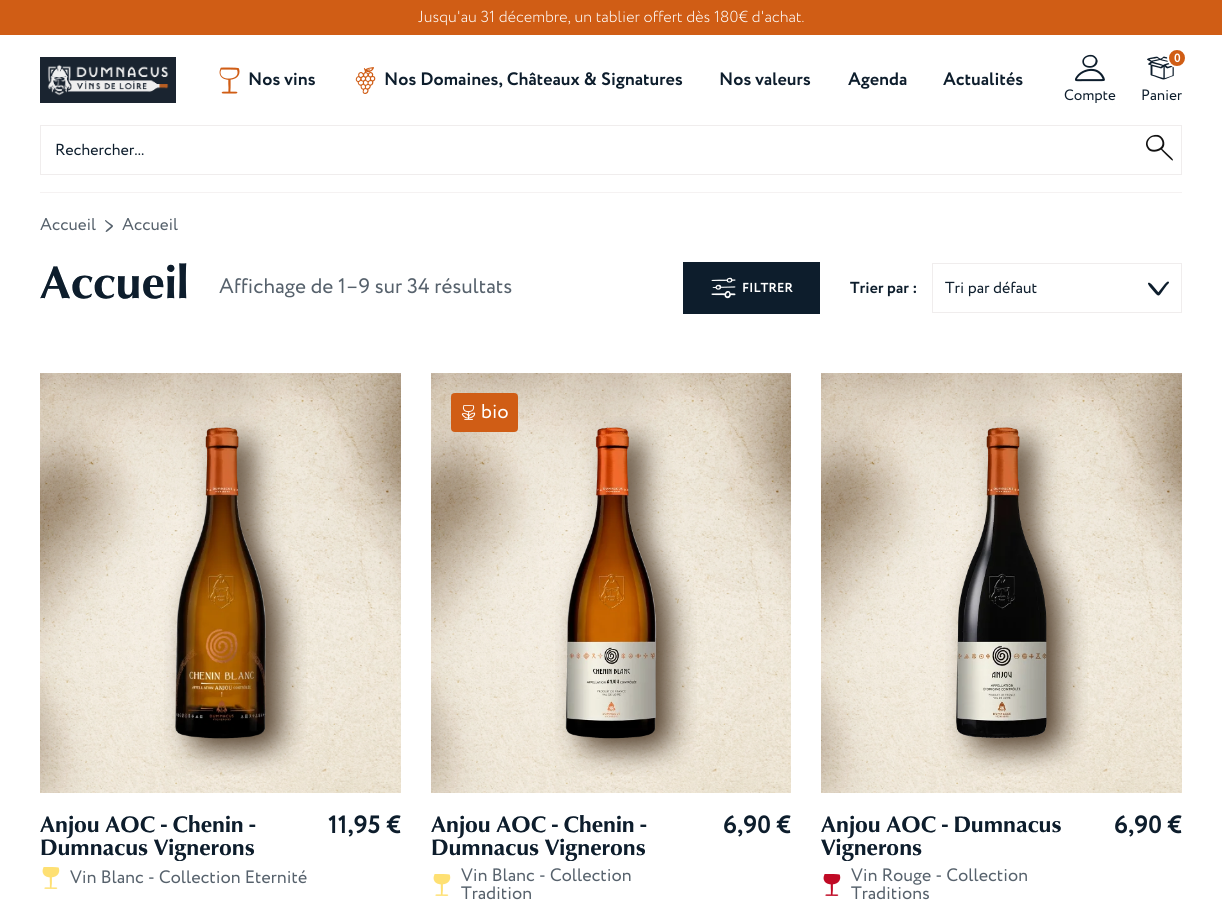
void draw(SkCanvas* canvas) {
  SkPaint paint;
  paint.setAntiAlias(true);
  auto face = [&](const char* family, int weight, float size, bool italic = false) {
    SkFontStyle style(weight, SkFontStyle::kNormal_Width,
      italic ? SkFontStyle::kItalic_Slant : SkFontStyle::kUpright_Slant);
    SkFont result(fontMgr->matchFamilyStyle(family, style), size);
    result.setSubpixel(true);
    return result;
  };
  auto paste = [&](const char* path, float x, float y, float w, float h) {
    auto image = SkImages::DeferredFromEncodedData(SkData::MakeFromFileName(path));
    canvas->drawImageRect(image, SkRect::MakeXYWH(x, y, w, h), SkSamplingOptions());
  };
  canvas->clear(0xffffffff);
  paint.setColor(0xffd05d15);
  canvas->drawRect(SkRect::MakeXYWH(0, 0, 1222, 35), paint);
  paste("img/1.png", 418, 10, 386, 16);
  paste("img/2.png", 40, 57, 136, 46);
  paste("img/3.png", 219, 67, 21, 27);
  paste("img/4.png", 249, 72, 66, 14);
  paste("img/5.png", 355, 67, 21, 27);
  paste("img/6.png", 385, 72, 298, 17);
  paste("img/7.png", 720, 72, 91, 14);
  paste("img/8.png", 848, 72, 59, 17);
  paste("img/9.png", 943, 72, 80, 14);
  paste("img/10.png", 1075, 54, 30, 28);
  paste("img/11.png", 1064, 89, 52, 14);
  paste("img/12.png", 1147, 56, 27, 24);
  canvas->drawCircle(1177, 58, 9, paint);
  paint.setStroke(true);
  paint.setStrokeWidth(2);
  paint.setColor(0xffffffff);
  canvas->drawCircle(1177, 58, 9, paint);
  paste("img/13.png", 1174, 53, 7, 10);
  paste("img/14.png", 1142, 89, 40, 12);
  paint.setStrokeWidth(1);
  paint.setColor(0xfff0eded);
  canvas->drawRect(SkRect::MakeXYWH(40.5f, 125.5f, 1141, 49), paint);
  paste("img/15.png", 56, 143, 88, 13);
  paste("img/16.png", 1146, 134, 27, 27);
  paint.setStroke(false);
  paint.setColor(0xfff5f2f2);
  canvas->drawRect(SkRect::MakeXYWH(40, 192, 1142, 1), paint);
  paste("img/17.png", 40, 218, 56, 13);
  paste("img/18.png", 105, 220, 8, 12);
  paste("img/17.png", 122, 218, 56, 13);
  paste("img/19.png", 219, 278, 293, 20);
  paint.setColor(0xff0d1d2c);
  canvas->drawRect(SkRect::MakeXYWH(683, 262, 137, 52), paint);
  paste("img/20.png", 711, 277, 25, 22);
  paste("img/21.png", 743, 282, 50, 10);
  paste("img/22.png", 850, 281, 66, 16);
  paste("img/23.png", 1148, 281, 21, 15);
  paint.setStroke(true);
  paint.setColor(0xfff0eded);
  canvas->drawRect(SkRect::MakeXYWH(932.5f, 263.5f, 249, 49), paint);
  paste("img/24.png", 945, 281, 92, 16);
  paste("img/25.png", 40, 373, 361, 420);
  paste("img/26.png", 164, 416, 143, 360);
  paste("img/27.png", 328, 815, 52, 22);
  paste("img/28.png", 386, 815, 15, 19);
  paste("img/29.png", 42, 867, 18, 22);
  paste("img/30.png", 70, 870, 237, 14);
  paste("img/31.png", 431, 373, 360, 420);
  paint.setStroke(false);
  paint.setColor(0xffd05d15);
  canvas->drawRoundRect(SkRect::MakeXYWH(451, 393, 67, 39), 4, 4, paint);
  paste("img/32.png", 461, 405, 15, 15);
  paste("img/33.png", 482, 404, 26, 15);
  paste("img/34.png", 555, 416, 142, 360);
  paste("img/35.png", 724, 815, 46, 22);
  paste("img/28.png", 776, 815, 15, 19);
  paste("img/29.png", 433, 874, 18, 22);
  paste("img/36.png", 461, 868, 170, 14);
  paste("img/37.png", 461, 886, 70, 14);
  paste("img/25.png", 821, 373, 361, 420);
  paste("img/38.png", 945, 416, 143, 360);
  paste("img/35.png", 1115, 815, 46, 22);
  paste("img/28.png", 1167, 815, 15, 19);
  paste("img/39.png", 823, 874, 18, 22);
  paste("img/40.png", 851, 868, 176, 17);
  paste("img/41.png", 851, 886, 78, 14);
  auto f0 = face("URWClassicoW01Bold", 700, 47);
  paint.setColor(0xff0d1d2c);
  canvas->drawString("Accueil", 40, 298, f0, paint);
  auto f1 = face("URWClassicoW01Bold", 700, 23);
  {
    const struct { const char* s; float x, y; } items[] = {
      {"Anjou AOC - Chenin -", 40, 832},
      {"Dumnacus Vignerons", 40, 855},
      {"Anjou AOC - Chenin -", 431, 832},
      {"Dumnacus Vignerons", 431, 855},
      {"Anjou AOC - Dumnacus", 821, 832},
      {"Vignerons", 821, 855},
    };
    for (auto [s, x, y] : items) {
      canvas->drawString(s, x, y, f1, paint);
    }
  }
}
